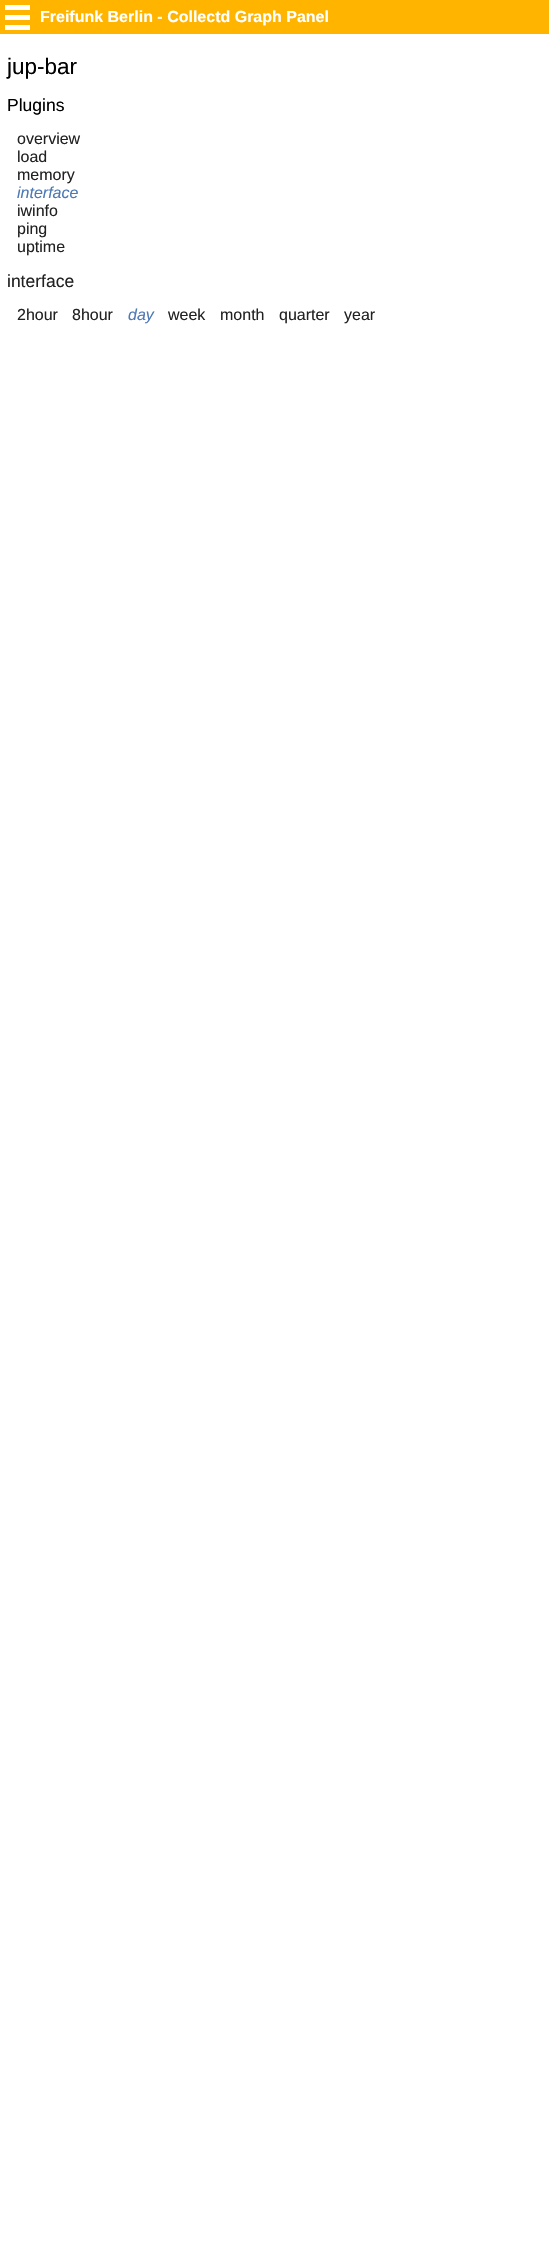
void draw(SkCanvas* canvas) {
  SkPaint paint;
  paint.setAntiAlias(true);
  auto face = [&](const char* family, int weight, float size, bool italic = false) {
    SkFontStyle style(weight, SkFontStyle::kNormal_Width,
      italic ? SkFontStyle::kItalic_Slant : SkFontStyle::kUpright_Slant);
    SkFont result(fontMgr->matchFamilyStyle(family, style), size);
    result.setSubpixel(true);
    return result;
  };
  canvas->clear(0xffffffff);
  {
    const struct { float x, y, w, h; SkColor color; } items[] = {
      {0, 0, 549, 34, 0xffffb400},
      {5, 5, 25, 5, 0xffffffff},
      {5, 25, 25, 5, 0xffffffff},
      {5, 15, 25, 5, 0xffffffff},
    };
    for (auto [x, y, w, h, color] : items) {
      paint.setColor(color);
      canvas->drawRect(SkRect::MakeXYWH(x, y, w, h), paint);
    }
  }
  auto f0 = face("Liberation Sans", 700, 16);
  canvas->drawString("Freifunk Berlin - Collectd Graph Panel", 40, 22, f0, paint);
  auto f1 = face("Liberation Sans", 400, 22.5f);
  paint.setColor(0xff000000);
  canvas->drawString("jup-bar", 7, 74, f1, paint);
  auto f2 = face("Liberation Sans", 400, 17.5f);
  canvas->drawString("Plugins", 7, 111, f2, paint);
  auto f3 = face("Liberation Sans", 400, 16);
  paint.setColor(0xff222222);
  {
    const struct { const char* s; float x, y; } items[] = {
      {"overview", 17, 144},
      {"load", 17, 162},
      {"memory", 17, 180},
    };
    for (auto [s, x, y] : items) {
      canvas->drawString(s, x, y, f3, paint);
    }
  }
  auto f4 = face("Liberation Sans", 400, 16, true);
  paint.setColor(0xff4d79b5);
  canvas->drawString("interface", 17, 198, f4, paint);
  paint.setColor(0xff222222);
  {
    const struct { const char* s; float x, y; } items[] = {
      {"iwinfo", 17, 216},
      {"ping", 17, 234},
      {"uptime", 17, 252},
    };
    for (auto [s, x, y] : items) {
      canvas->drawString(s, x, y, f3, paint);
    }
  }
  canvas->drawString("interface", 7, 287, f2, paint);
  canvas->drawString("2hour", 17, 320, f3, paint);
  canvas->drawString("8hour", 72, 320, f3, paint);
  paint.setColor(0xff4d79b5);
  canvas->drawString("day", 128, 320, f4, paint);
  paint.setColor(0xff222222);
  {
    const struct { const char* s; float x, y; } items[] = {
      {"week", 168, 320},
      {"month", 220, 320},
      {"quarter", 279, 320},
      {"year", 344, 320},
    };
    for (auto [s, x, y] : items) {
      canvas->drawString(s, x, y, f3, paint);
    }
  }
}
